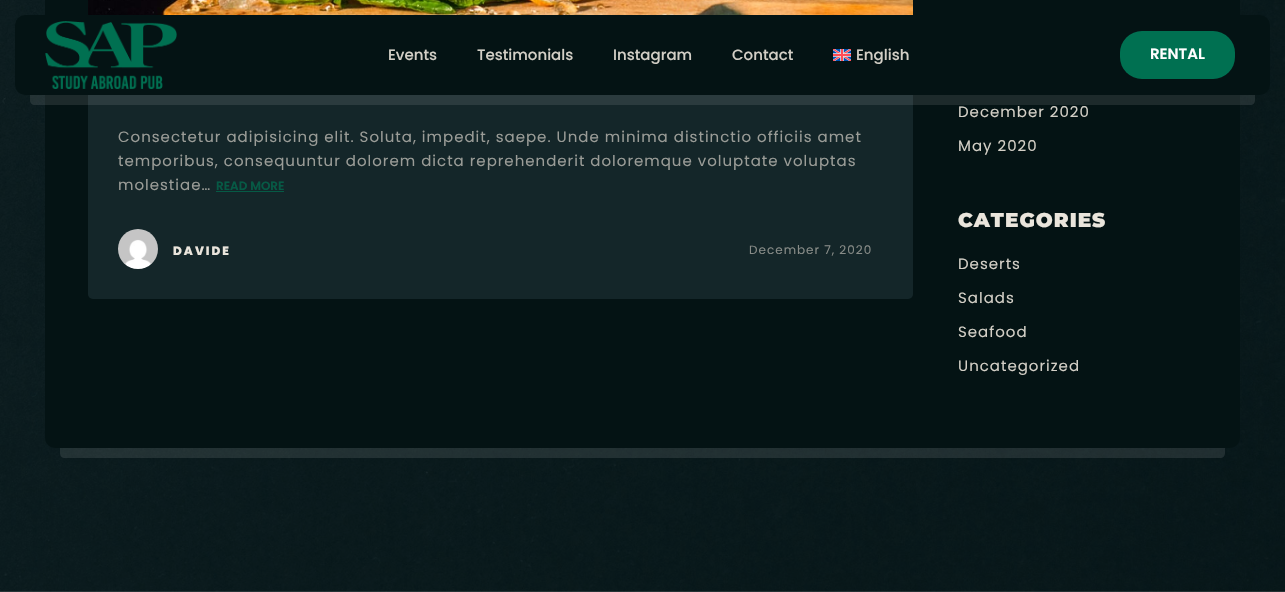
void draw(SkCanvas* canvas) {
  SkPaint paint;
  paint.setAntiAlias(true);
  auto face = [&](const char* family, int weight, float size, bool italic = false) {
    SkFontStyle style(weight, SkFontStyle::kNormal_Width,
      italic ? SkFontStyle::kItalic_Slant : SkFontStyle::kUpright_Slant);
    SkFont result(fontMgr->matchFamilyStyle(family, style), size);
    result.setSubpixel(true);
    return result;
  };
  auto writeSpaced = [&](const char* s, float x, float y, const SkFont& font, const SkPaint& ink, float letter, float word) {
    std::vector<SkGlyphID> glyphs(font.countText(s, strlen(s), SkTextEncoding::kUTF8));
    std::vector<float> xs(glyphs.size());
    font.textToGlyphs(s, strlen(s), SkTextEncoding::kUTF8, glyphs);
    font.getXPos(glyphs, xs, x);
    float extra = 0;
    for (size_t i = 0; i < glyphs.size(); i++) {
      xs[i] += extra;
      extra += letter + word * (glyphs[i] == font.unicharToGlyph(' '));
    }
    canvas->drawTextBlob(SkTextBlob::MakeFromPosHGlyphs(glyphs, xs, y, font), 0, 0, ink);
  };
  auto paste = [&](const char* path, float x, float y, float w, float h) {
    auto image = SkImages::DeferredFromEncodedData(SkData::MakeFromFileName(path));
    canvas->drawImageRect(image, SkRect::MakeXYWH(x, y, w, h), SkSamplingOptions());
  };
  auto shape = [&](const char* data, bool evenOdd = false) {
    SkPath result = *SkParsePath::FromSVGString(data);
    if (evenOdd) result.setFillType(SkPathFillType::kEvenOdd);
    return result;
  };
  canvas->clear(0xffffffff);
  paste("img/1.png", 0, 0, 1285, 592);
  paint.setColor(0xff041314);
  canvas->drawRect(SkRect::MakeXYWH(45, 0, 1195, 388), paint);
  paint.setColor(0xff142629);
  canvas->drawRoundRect(SkRect::MakeXYWH(88, -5, 825, 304), 5, 5, paint);
  paint.setColor(0xff041314);
  canvas->drawRoundRect(SkRect::MakeXYWH(15, 15, 1255, 80), 10, 10, paint);
  paste("img/2.png", 45, 21, 132, 68);
  paste("img/3.png", 833, 49, 18, 12);
  paint.setColor(0xff007051);
  canvas->drawRoundRect(SkRect::MakeXYWH(1120, 31, 115, 48), 22, 22, paint);
  paint.setColor(0x1af2f6f7);
  canvas->drawPath(shape("M30 95H1255V100C1255 103 1253 105 1250 105H35C32 105 30 103 30 100Z"), paint);
  paste("img/4.png", 88, 0, 825, 15);
  paint.setColor(0xff065a45);
  canvas->drawRect(SkRect::MakeXYWH(216, 191, 68, 1), paint);
  paste("img/5.png", 118, 229, 40, 40);
  paint.setColor(0xff041314);
  canvas->drawPath(shape("M45 388H1240V438C1240 443.5 1235.5 448 1230 448H55C49.5 448 45 443.5 45 438Z"), paint);
  paint.setColor(0x1af2f6f7);
  canvas->drawPath(shape("M60 448H1225V453C1225 456 1223 458 1220 458H65C62 458 60 456 60 453Z"), paint);
  auto f0 = face("Poppins", 500, 15);
  paint.setColor(0xffd3cfc6);
  {
    const struct { const char* s; float x, y; } items[] = {
      {"Events", 388, 60},
      {"Testimonials", 477, 60},
      {"Instagram", 613, 60},
      {"Contact", 732, 60},
      {"English", 856, 60},
    };
    for (auto [s, x, y] : items) {
      canvas->drawString(s, x, y, f0, paint);
    }
  }
  auto f1 = face("Poppins", 600, 15);
  paint.setColor(0xffffffff);
  canvas->drawString("RENTAL", 1150, 59, f1, paint);
  auto f2 = face("Poppins", 400, 15);
  paint.setColor(0xff9a9c97);
  {
    const struct { const char* s; float x, y; } items[] = {
      {"Consectetur adipisicing elit. Soluta, impedit, saepe. Unde minima distinctio officiis amet", 118, 142},
      {"temporibus, consequuntur dolorem dicta reprehenderit doloremque voluptate voluptas", 118, 166},
      {"molestiae…", 118, 190},
    };
    for (auto [s, x, y] : items) {
      writeSpaced(s, x, y, f2, paint, 1, 0);
    }
  }
  auto f3 = face("Poppins", 600, 12);
  paint.setColor(0xff065a45);
  canvas->drawString("READ MORE", 216, 190, f3, paint);
  auto f4 = face("Poppins", 800, 12);
  paint.setColor(0xffeae5dc);
  writeSpaced("DAVIDE", 173, 255, f4, paint, 2, 0);
  auto f5 = face("Poppins", 400, 12);
  paint.setColor(0xff878b87);
  writeSpaced("December 7, 2020", 749, 254, f5, paint, 1, 0);
  paint.setColor(0xffd3cfc6);
  writeSpaced("December 2020", 958, 117, f2, paint, 1, 0);
  writeSpaced("May 2020", 958, 151, f2, paint, 1, 0);
  auto f6 = face("Montserrat", 900, 20);
  paint.setColor(0xffeae5dc);
  writeSpaced("CATEGORIES", 958, 227, f6, paint, 1, 0);
  paint.setColor(0xffd3cfc6);
  {
    const struct { const char* s; float x, y; } items[] = {
      {"Deserts", 958, 269},
      {"Salads", 958, 303},
      {"Seafood", 958, 337},
      {"Uncategorized", 958, 371},
    };
    for (auto [s, x, y] : items) {
      writeSpaced(s, x, y, f2, paint, 1, 0);
    }
  }
}
